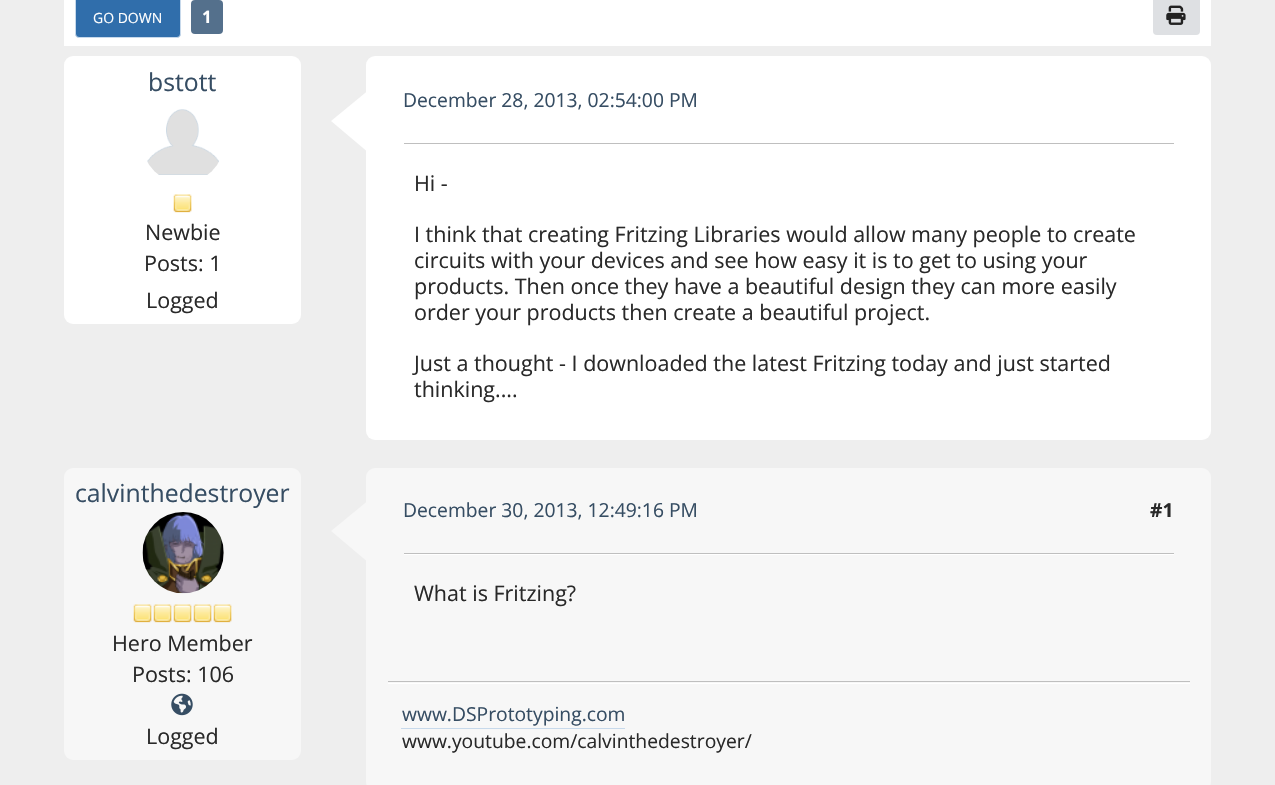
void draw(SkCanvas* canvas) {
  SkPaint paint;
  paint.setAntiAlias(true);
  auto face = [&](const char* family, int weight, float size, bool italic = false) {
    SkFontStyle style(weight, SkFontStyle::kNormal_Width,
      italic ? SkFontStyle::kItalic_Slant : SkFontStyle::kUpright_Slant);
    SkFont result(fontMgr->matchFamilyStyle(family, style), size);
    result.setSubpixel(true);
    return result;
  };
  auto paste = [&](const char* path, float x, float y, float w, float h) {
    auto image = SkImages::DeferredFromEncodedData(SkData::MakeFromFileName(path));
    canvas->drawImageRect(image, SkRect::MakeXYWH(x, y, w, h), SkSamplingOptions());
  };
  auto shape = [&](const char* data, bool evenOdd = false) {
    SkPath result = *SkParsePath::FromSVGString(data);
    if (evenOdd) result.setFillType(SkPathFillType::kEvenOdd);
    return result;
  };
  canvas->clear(0xffeeeeee);
  paint.setColor(0xffffffff);
  canvas->drawRect(SkRect::MakeXYWH(64, 0, 1147, 46), paint);
  paint.setColor(0xff306eab);
  canvas->drawRoundRect(SkRect::MakeXYWH(75.5f, -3.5f, 105, 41), 3.5f, 3.5f, paint);
  paint.setStroke(true);
  paint.setStrokeWidth(1);
  paint.setColor(0xffc7d9eb);
  canvas->drawRoundRect(SkRect::MakeXYWH(75.5f, -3.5f, 105, 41), 3.5f, 3.5f, paint);
  paint.setStroke(false);
  paint.setColor(0xff54708c);
  canvas->drawRoundRect(SkRect::MakeXYWH(191, 0, 32, 34), 4, 4, paint);
  paint.setColor(0xffdee0e3);
  canvas->drawRoundRect(SkRect::MakeXYWH(1153, -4, 47, 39), 4, 4, paint);
  paste("img/1.png", 1166, 5, 20, 20);
  paint.setColor(0xffffffff);
  canvas->drawRoundRect(SkRect::MakeXYWH(64, 56, 237, 268), 9, 9, paint);
  paste("img/2.png", 147, 109, 72, 66);
  paste("img/3.png", 173, 194, 19, 19);
  canvas->drawRoundRect(SkRect::MakeXYWH(366, 56, 845, 384), 9, 9, paint);
  canvas->drawPath(shape("M376 84H438L393 121H331Z"), paint);
  canvas->drawPath(shape("M331 121H393L438 159H376Z"), paint);
  paint.setColor(0xffbfbfbf);
  canvas->drawRect(SkRect::MakeXYWH(404, 143, 770, 1), paint);
  paint.setColor(0xfff7f7f7);
  canvas->drawRoundRect(SkRect::MakeXYWH(64, 468, 237, 292), 9, 9, paint);
  paste("img/4.png", 142, 512, 82, 82);
  paste("img/5.png", 133, 604, 19, 19);
  paste("img/5.png", 153, 604, 19, 19);
  paste("img/5.png", 173, 604, 19, 19);
  paste("img/5.png", 193, 604, 19, 19);
  paste("img/5.png", 213, 604, 19, 19);
  paste("img/6.png", 171, 693, 22, 23);
  canvas->drawRoundRect(SkRect::MakeXYWH(366, 468, 845, 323), 9, 9, paint);
  canvas->drawPath(shape("M376 494H438L393 531H331Z"), paint);
  canvas->drawPath(shape("M331 531H393L438 569H376Z"), paint);
  {
    const struct { float x, y, w, h; SkColor color; } items[] = {
      {404, 554, 770, 1, 0xffffffff},
      {404, 553, 770, 1, 0xffbfbfbf},
      {388, 683, 802, 1, 0xffffffff},
      {388, 681, 802, 1, 0xffbfbfbf},
      {401, 728, 224, 1, 0xffc7d9eb},
    };
    for (auto [x, y, w, h, color] : items) {
      paint.setColor(color);
      canvas->drawRect(SkRect::MakeXYWH(x, y, w, h), paint);
    }
  }
  auto f0 = face("Open Sans", 400, 14);
  paint.setColor(0xffffffff);
  canvas->drawString("GO DOWN", 93, 23, f0, paint);
  auto f1 = face("Open Sans", 700, 17);
  canvas->drawString("1", 202, 23, f1, paint);
  auto f2 = face("Open Sans", 400, 24.75f);
  paint.setColor(0xff364d63);
  canvas->drawString("bstott", 148, 91, f2, paint);
  auto f3 = face("Open Sans", 400, 21.5f);
  paint.setColor(0xff292929);
  {
    const struct { const char* s; float x, y; } items[] = {
      {"Newbie", 145, 240},
      {"Posts: 1", 144, 271},
      {"Logged", 146, 308},
    };
    for (auto [s, x, y] : items) {
      canvas->drawString(s, x, y, f3, paint);
    }
  }
  auto f4 = face("Open Sans", 400, 19.3f);
  paint.setColor(0xff364d63);
  canvas->drawString("December 28, 2013, 02:54:00 PM", 403, 107, f4, paint);
  paint.setColor(0xff292929);
  {
    const struct { const char* s; float x, y; } items[] = {
      {"Hi -", 414, 191},
      {"I think that creating Fritzing Libraries would allow many people to create", 414, 242},
      {"circuits with your devices and see how easy it is to get to using your", 414, 268},
      {"products. Then once they have a beautiful design they can more easily", 414, 294},
      {"order your products then create a beautiful project.", 414, 320},
      {"Just a thought - I downloaded the latest Fritzing today and just started", 414, 371},
      {"thinking....", 414, 397},
    };
    for (auto [s, x, y] : items) {
      canvas->drawString(s, x, y, f3, paint);
    }
  }
  paint.setColor(0xff364d63);
  canvas->drawString("calvinthedestroyer", 75, 502, f2, paint);
  paint.setColor(0xff292929);
  {
    const struct { const char* s; float x, y; } items[] = {
      {"Hero Member", 112, 651},
      {"Posts: 106", 132, 682},
      {"Logged", 146, 744},
    };
    for (auto [s, x, y] : items) {
      canvas->drawString(s, x, y, f3, paint);
    }
  }
  paint.setColor(0xff364d63);
  canvas->drawString("December 30, 2013, 12:49:16 PM", 403, 517, f4, paint);
  auto f5 = face("Open Sans", 700, 19.3f);
  paint.setColor(0xff292929);
  canvas->drawString("#1", 1150, 517, f5, paint);
  canvas->drawString("What is Fritzing?", 414, 601, f3, paint);
  paint.setColor(0xff364d63);
  canvas->drawString("www.DSPrototyping.com", 402, 721, f4, paint);
  paint.setColor(0xff292929);
  canvas->drawString("www.youtube.com/calvinthedestroyer/", 402, 748, f4, paint);
}
